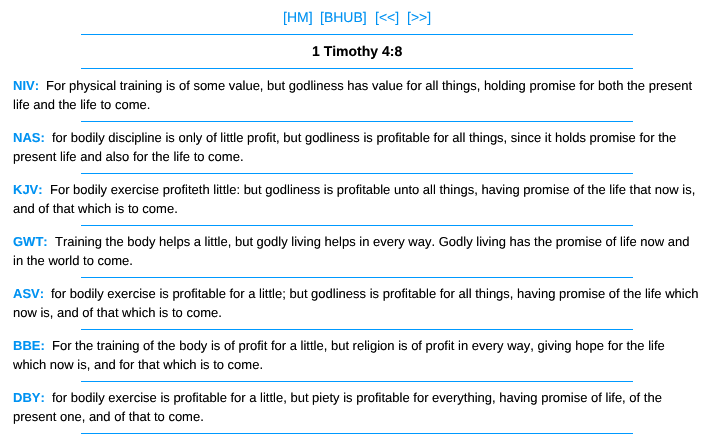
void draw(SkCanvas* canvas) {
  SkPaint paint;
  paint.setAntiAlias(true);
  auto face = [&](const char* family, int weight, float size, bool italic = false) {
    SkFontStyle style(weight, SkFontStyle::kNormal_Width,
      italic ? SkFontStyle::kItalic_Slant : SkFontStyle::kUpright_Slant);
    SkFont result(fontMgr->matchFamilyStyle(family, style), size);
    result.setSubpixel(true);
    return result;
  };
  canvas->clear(0xffffffff);
  {
    const struct { float x, y, w, h; SkColor color; } items[] = {
      {81, 34, 552, 1, 0xff0099ff},
      {81, 68, 552, 1, 0xff0099ff},
      {81, 121, 552, 1, 0xff0099ff},
      {81, 173, 552, 1, 0xff0099ff},
      {81, 225, 552, 1, 0xff0099ff},
      {81, 277, 552, 1, 0xff0099ff},
      {81, 329, 552, 1, 0xff0099ff},
      {81, 381, 552, 1, 0xff0099ff},
      {81, 433, 552, 1, 0xff0099ff},
    };
    for (auto [x, y, w, h, color] : items) {
      paint.setColor(color);
      canvas->drawRect(SkRect::MakeXYWH(x, y, w, h), paint);
    }
  }
  auto f0 = face("Liberation Sans", 400, 14);
  paint.setColor(0xff0092f2);
  {
    const struct { const char* s; float x, y; } items[] = {
      {"[HM]", 283, 22},
      {"[BHUB]", 320, 22},
      {"[<<]", 375, 22},
      {"[>>]", 407, 22},
    };
    for (auto [s, x, y] : items) {
      canvas->drawString(s, x, y, f0, paint);
    }
  }
  auto f1 = face("Liberation Sans", 700, 14);
  paint.setColor(0xff000000);
  canvas->drawString("1 Timothy 4:8", 312, 56, f1, paint);
  auto f2 = face("Liberation Sans", 700, 13);
  paint.setColor(0xff0092f2);
  canvas->drawString("NIV:", 13, 90, f2, paint);
  auto f3 = face("Liberation Sans", 400, 13);
  paint.setColor(0xff000000);
  canvas->drawString("For physical training is of some value, but godliness has value for all things, holding promise for both the present", 46, 90, f3, paint);
  canvas->drawString("life and the life to come.", 13, 109, f3, paint);
  paint.setColor(0xff0092f2);
  canvas->drawString("NAS:", 13, 142, f2, paint);
  paint.setColor(0xff000000);
  canvas->drawString("for bodily discipline is only of little profit, but godliness is profitable for all things, since it holds promise for the", 52, 142, f3, paint);
  canvas->drawString("present life and also for the life to come.", 13, 161, f3, paint);
  paint.setColor(0xff0092f2);
  canvas->drawString("KJV:", 13, 194, f2, paint);
  paint.setColor(0xff000000);
  canvas->drawString("For bodily exercise profiteth little: but godliness is profitable unto all things, having promise of the life that now is,", 50, 194, f3, paint);
  canvas->drawString("and of that which is to come.", 13, 213, f3, paint);
  paint.setColor(0xff0092f2);
  canvas->drawString("GWT:", 13, 246, f2, paint);
  paint.setColor(0xff000000);
  canvas->drawString("Training the body helps a little, but godly living helps in every way. Godly living has the promise of life now and", 55, 246, f3, paint);
  canvas->drawString("in the world to come.", 13, 265, f3, paint);
  paint.setColor(0xff0092f2);
  canvas->drawString("ASV:", 13, 298, f2, paint);
  paint.setColor(0xff000000);
  canvas->drawString("for bodily exercise is profitable for a little; but godliness is profitable for all things, having promise of the life which", 51, 298, f3, paint);
  canvas->drawString("now is, and of that which is to come.", 13, 317, f3, paint);
  paint.setColor(0xff0092f2);
  canvas->drawString("BBE:", 13, 350, f2, paint);
  paint.setColor(0xff000000);
  canvas->drawString("For the training of the body is of profit for a little, but religion is of profit in every way, giving hope for the life", 52, 350, f3, paint);
  canvas->drawString("which now is, and for that which is to come.", 13, 369, f3, paint);
  paint.setColor(0xff0092f2);
  canvas->drawString("DBY:", 13, 402, f2, paint);
  paint.setColor(0xff000000);
  canvas->drawString("for bodily exercise is profitable for a little, but piety is profitable for everything, having promise of life, of the", 52, 402, f3, paint);
  canvas->drawString("present one, and of that to come.", 13, 421, f3, paint);
}
